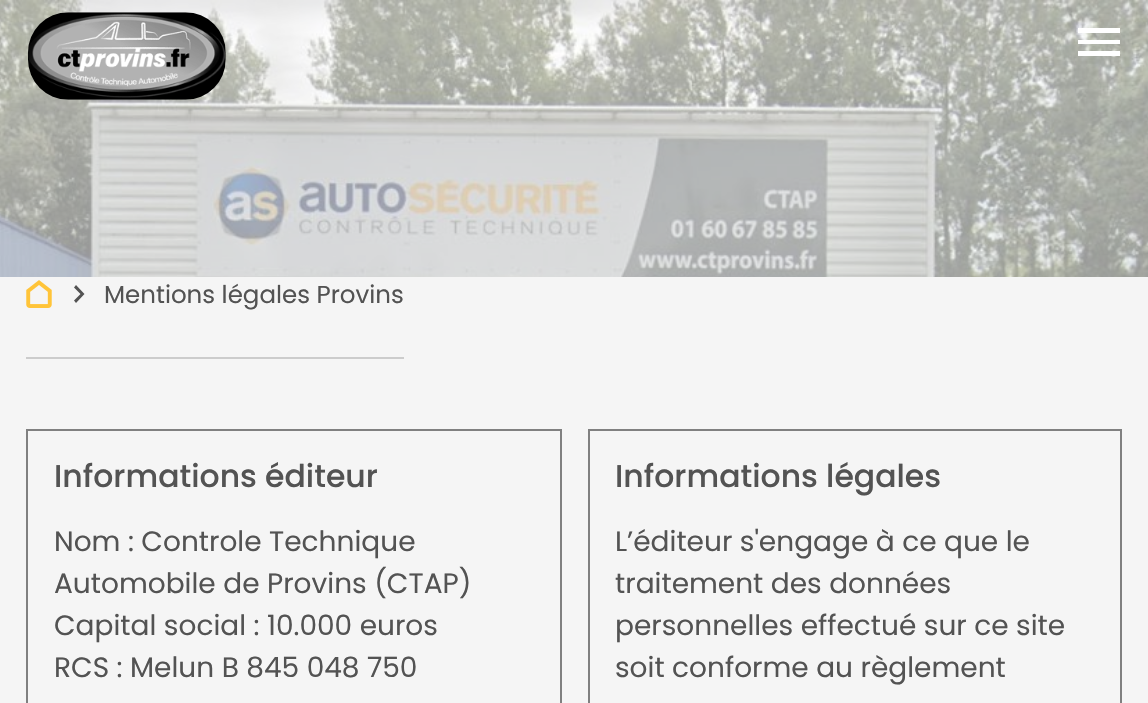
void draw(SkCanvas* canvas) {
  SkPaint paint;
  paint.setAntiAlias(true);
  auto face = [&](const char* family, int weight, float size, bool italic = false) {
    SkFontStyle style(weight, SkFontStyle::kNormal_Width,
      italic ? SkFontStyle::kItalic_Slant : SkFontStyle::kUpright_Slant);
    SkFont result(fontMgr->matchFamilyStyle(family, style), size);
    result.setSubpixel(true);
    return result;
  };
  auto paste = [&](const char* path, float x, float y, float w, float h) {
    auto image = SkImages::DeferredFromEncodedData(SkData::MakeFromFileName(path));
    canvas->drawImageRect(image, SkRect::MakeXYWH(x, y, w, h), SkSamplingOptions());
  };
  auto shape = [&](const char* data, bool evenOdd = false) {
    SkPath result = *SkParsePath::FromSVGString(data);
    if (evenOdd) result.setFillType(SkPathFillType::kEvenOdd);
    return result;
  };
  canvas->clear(0xffffffff);
  paste("img/2.png", 0, 0, 1148, 277);
  paste("img/1.png", 28, 12, 198, 88);
  paint.setColor(0xffffffff);
  canvas->drawPath(shape("M1078 28H1120V33H1078ZM1078 44V40H1120V44ZM1078 56V51H1120V56Z"), paint);
  paint.setColor(0xfff5f5f5);
  canvas->drawRect(SkRect::MakeXYWH(0, 277, 1148, 426), paint);
  paint.setColor(0xffcccccc);
  canvas->drawRect(SkRect::MakeXYWH(26, 357, 378, 2), paint);
  paste("img/3.png", 26, 280, 26, 28);
  paint.setColor(0xff535353);
  canvas->drawPath(shape("M74 300.5L80.5 294L74 287.5L76 285L84.5 294L76 303Z"), paint);
  paint.setStroke(true);
  paint.setStrokeWidth(2);
  paint.setColor(0xff808080);
  canvas->drawRect(SkRect::MakeXYWH(27, 430, 534, 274), paint);
  canvas->drawRect(SkRect::MakeXYWH(589, 430, 532, 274), paint);
  auto f0 = face("Poppins", 400, 24.5f);
  paint.setStroke(false);
  paint.setColor(0xff535353);
  canvas->drawString("Mentions légales Provins", 104, 303, f0, paint);
  auto f1 = face("Poppins", 500, 31.5f);
  canvas->drawString("Informations éditeur", 54, 487, f1, paint);
  auto f2 = face("Poppins", 400, 28);
  {
    const struct { const char* s; float x, y; } items[] = {
      {"Nom : Controle Technique", 54, 551},
      {"Automobile de Provins (CTAP)", 54, 593},
      {"Capital social : 10.000 euros", 54, 635},
      {"RCS : Melun B 845 048 750", 54, 677},
    };
    for (auto [s, x, y] : items) {
      canvas->drawString(s, x, y, f2, paint);
    }
  }
  canvas->drawString("Informations légales", 615, 487, f1, paint);
  {
    const struct { const char* s; float x, y; } items[] = {
      {"L’éditeur s'engage à ce que le", 615, 551},
      {"traitement des données", 615, 593},
      {"personnelles effectué sur ce site", 615, 635},
      {"soit conforme au règlement", 615, 677},
    };
    for (auto [s, x, y] : items) {
      canvas->drawString(s, x, y, f2, paint);
    }
  }
}
